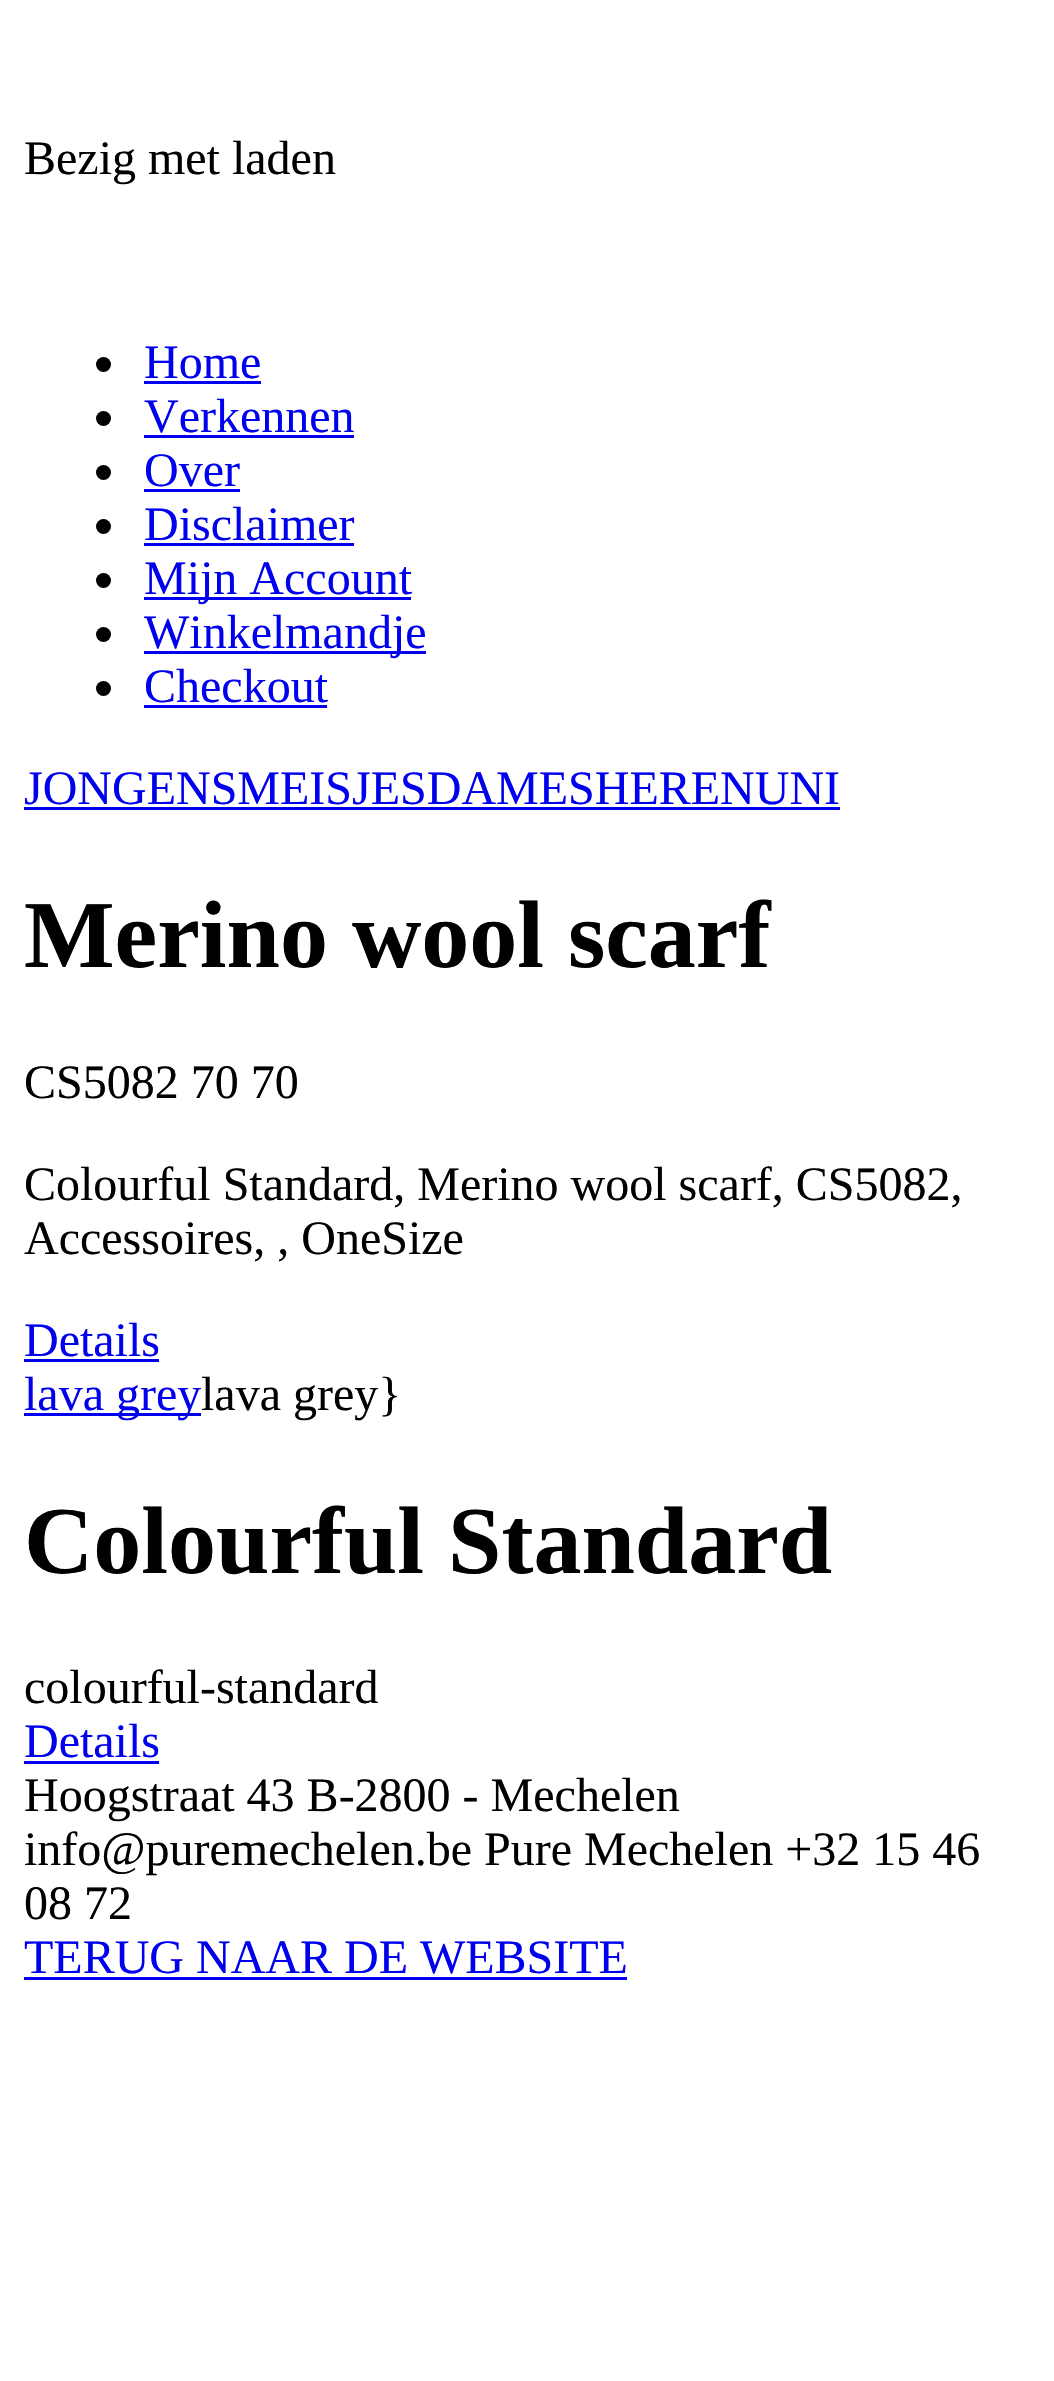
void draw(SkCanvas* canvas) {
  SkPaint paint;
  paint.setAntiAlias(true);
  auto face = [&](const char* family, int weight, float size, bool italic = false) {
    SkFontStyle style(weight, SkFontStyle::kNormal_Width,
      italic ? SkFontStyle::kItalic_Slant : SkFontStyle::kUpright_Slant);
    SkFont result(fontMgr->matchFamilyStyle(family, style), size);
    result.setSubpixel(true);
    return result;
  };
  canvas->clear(0xffffffff);
  paint.setColor(0xff000000);
  canvas->drawCircle(103.5f, 364.5f, 7.5f, paint);
  paint.setColor(0xff0000ee);
  canvas->drawRect(SkRect::MakeXYWH(144, 381, 117, 3), paint);
  paint.setColor(0xff000000);
  canvas->drawCircle(103.5f, 418.5f, 7.5f, paint);
  paint.setColor(0xff0000ee);
  canvas->drawRect(SkRect::MakeXYWH(144, 435, 210, 3), paint);
  paint.setColor(0xff000000);
  canvas->drawCircle(103.5f, 472.5f, 7.5f, paint);
  paint.setColor(0xff0000ee);
  canvas->drawRect(SkRect::MakeXYWH(144, 489, 96, 3), paint);
  paint.setColor(0xff000000);
  canvas->drawCircle(103.5f, 526.5f, 7.5f, paint);
  paint.setColor(0xff0000ee);
  canvas->drawRect(SkRect::MakeXYWH(144, 543, 210, 3), paint);
  paint.setColor(0xff000000);
  canvas->drawCircle(103.5f, 580.5f, 7.5f, paint);
  paint.setColor(0xff0000ee);
  canvas->drawRect(SkRect::MakeXYWH(144, 597, 267, 3), paint);
  paint.setColor(0xff000000);
  canvas->drawCircle(103.5f, 634.5f, 7.5f, paint);
  paint.setColor(0xff0000ee);
  canvas->drawRect(SkRect::MakeXYWH(144, 651, 282, 3), paint);
  paint.setColor(0xff000000);
  canvas->drawCircle(103.5f, 688.5f, 7.5f, paint);
  {
    const struct { float x, y, w, h; SkColor color; } items[] = {
      {144, 705, 183, 3, 0xff0000ee},
      {24, 807, 816, 3, 0xff0000ee},
      {24, 1359, 135, 3, 0xff0000ee},
      {24, 1413, 177, 3, 0xff0000ee},
      {24, 1761, 135, 3, 0xff0000ee},
      {24, 1977, 603, 3, 0xff0000ee},
    };
    for (auto [x, y, w, h, color] : items) {
      paint.setColor(color);
      canvas->drawRect(SkRect::MakeXYWH(x, y, w, h), paint);
    }
  }
  auto f0 = face("Liberation Serif", 400, 48);
  paint.setColor(0xff000000);
  canvas->drawString("Bezig met laden", 24, 174, f0, paint);
  paint.setColor(0xff0000ee);
  {
    const struct { const char* s; float x, y; } items[] = {
      {"Home", 144, 378},
      {"Verkennen", 144, 432},
      {"Over", 144, 486},
      {"Disclaimer", 144, 540},
      {"Mijn Account", 144, 594},
      {"Winkelmandje", 144, 648},
      {"Checkout", 144, 702},
      {"JONGENSMEISJESDAMESHERENUNI", 24, 804},
    };
    for (auto [s, x, y] : items) {
      canvas->drawString(s, x, y, f0, paint);
    }
  }
  auto f1 = face("Liberation Serif", 700, 96);
  paint.setColor(0xff000000);
  canvas->drawString("Merino wool scarf", 24, 967, f1, paint);
  {
    const struct { const char* s; float x, y; } items[] = {
      {"CS5082 70 70", 24, 1098},
      {"Colourful Standard, Merino wool scarf, CS5082,", 24, 1200},
      {"Accessoires, , OneSize", 24, 1254},
    };
    for (auto [s, x, y] : items) {
      canvas->drawString(s, x, y, f0, paint);
    }
  }
  paint.setColor(0xff0000ee);
  canvas->drawString("Details", 24, 1356, f0, paint);
  canvas->drawString("lava grey", 24, 1410, f0, paint);
  paint.setColor(0xff000000);
  canvas->drawString("lava grey}", 201, 1410, f0, paint);
  canvas->drawString("Colourful Standard", 24, 1573, f1, paint);
  canvas->drawString("colourful-standard", 24, 1703, f0, paint);
  paint.setColor(0xff0000ee);
  canvas->drawString("Details", 24, 1757, f0, paint);
  paint.setColor(0xff000000);
  {
    const struct { const char* s; float x, y; } items[] = {
      {"Hoogstraat 43 B-2800 - Mechelen", 24, 1811},
      {"info@puremechelen.be Pure Mechelen +32 15 46", 24, 1865},
      {"08 72", 24, 1919},
    };
    for (auto [s, x, y] : items) {
      canvas->drawString(s, x, y, f0, paint);
    }
  }
  paint.setColor(0xff0000ee);
  canvas->drawString("TERUG NAAR DE WEBSITE", 24, 1973, f0, paint);
}
